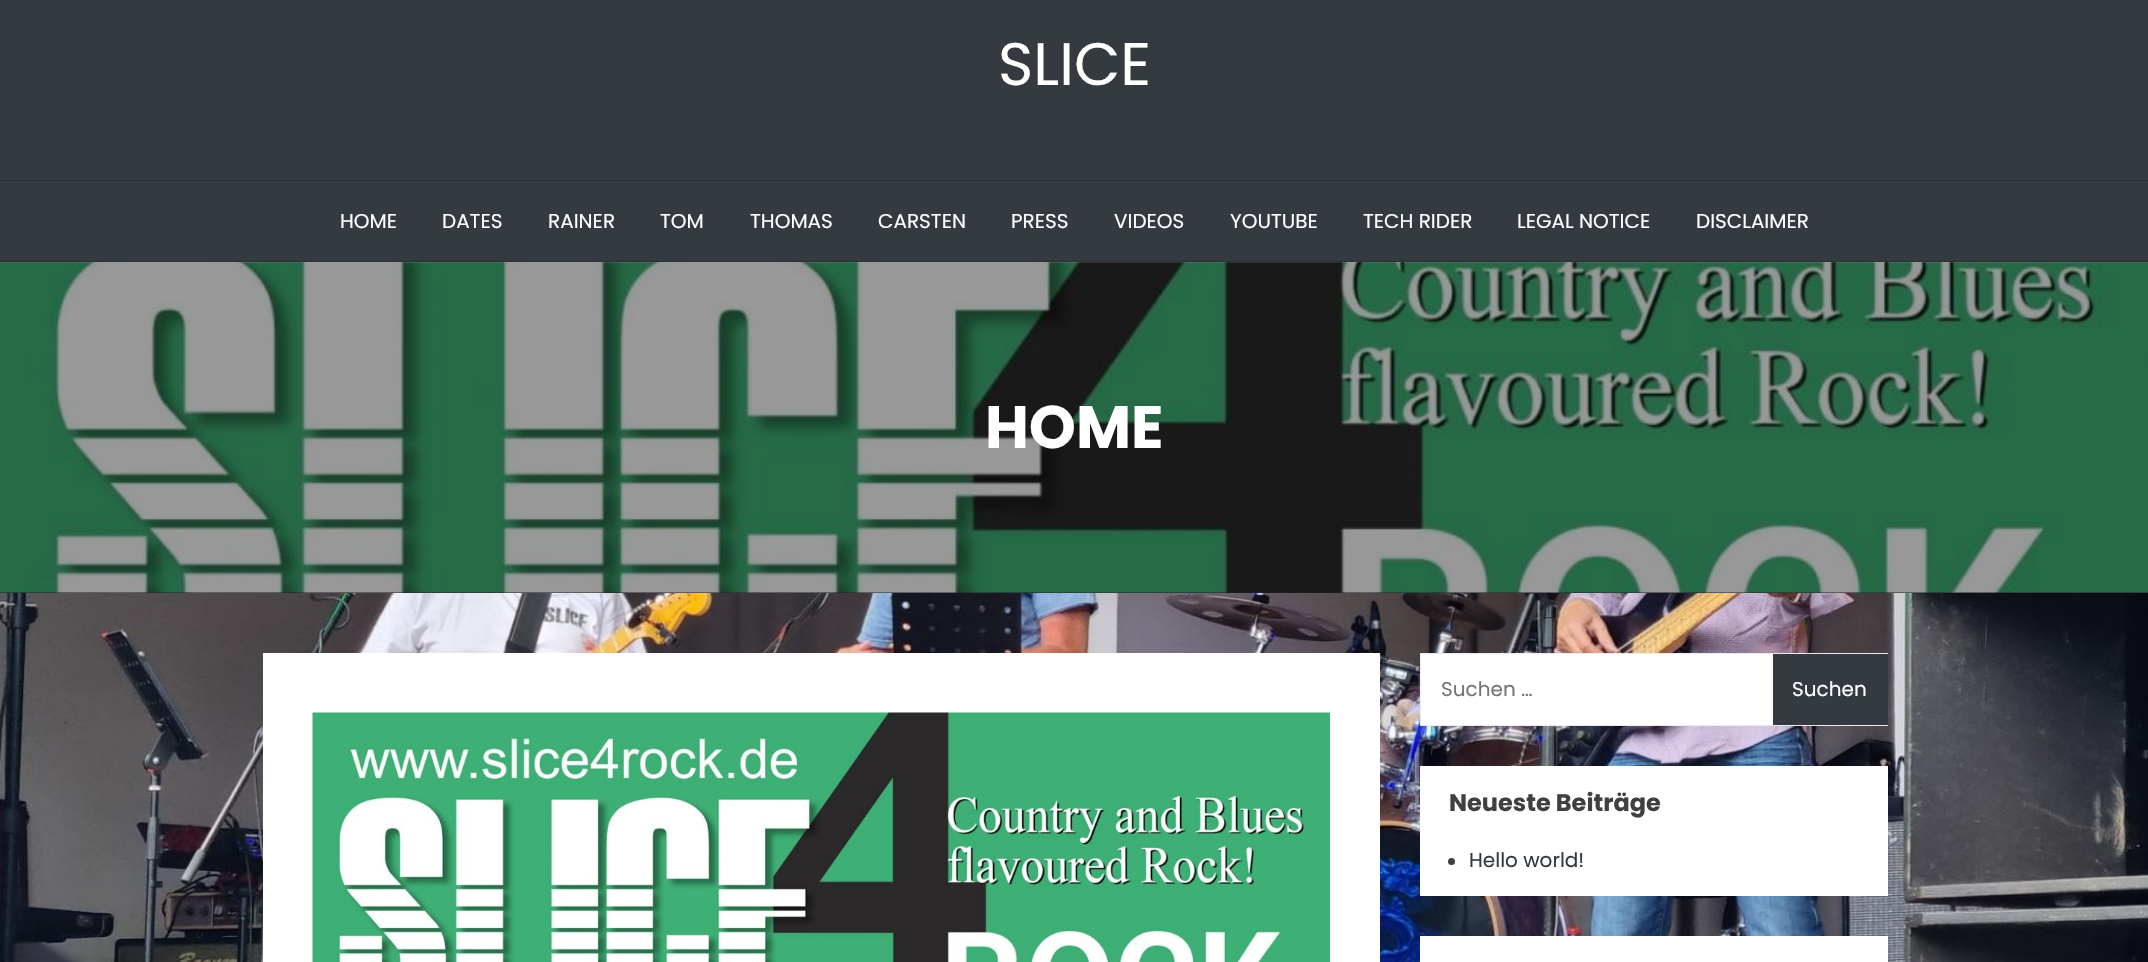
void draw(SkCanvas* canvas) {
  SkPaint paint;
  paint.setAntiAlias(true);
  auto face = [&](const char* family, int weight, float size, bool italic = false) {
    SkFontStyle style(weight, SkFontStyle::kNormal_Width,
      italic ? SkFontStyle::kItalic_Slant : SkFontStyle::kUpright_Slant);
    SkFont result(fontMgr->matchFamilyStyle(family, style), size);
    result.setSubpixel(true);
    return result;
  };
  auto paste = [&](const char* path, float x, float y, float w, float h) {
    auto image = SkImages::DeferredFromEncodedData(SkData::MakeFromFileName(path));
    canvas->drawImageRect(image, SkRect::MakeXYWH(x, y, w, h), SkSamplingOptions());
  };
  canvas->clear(0xffffffff);
  paste("img/1.png", 0, 593, 2148, 369);
  {
    const struct { float x, y, w, h; SkColor color; } items[] = {
      {0, 0, 2148, 263, 0xff343a40},
      {0, 180, 2148, 1, 0xff2d3135},
      {0, 261, 2148, 1, 0xff2d3135},
      {0, 592, 2148, 1, 0xff343a40},
    };
    for (auto [x, y, w, h, color] : items) {
      paint.setColor(color);
      canvas->drawRect(SkRect::MakeXYWH(x, y, w, h), paint);
    }
  }
  paste("img/2.png", 0, 262, 2148, 331);
  paint.setColor(0x66000000);
  canvas->drawRect(SkRect::MakeXYWH(0, 263, 2148, 330), paint);
  paint.setColor(0xffffffff);
  canvas->drawRect(SkRect::MakeXYWH(263, 653, 1117, 309), paint);
  paste("img/3.png", 312, 712, 1018, 250);
  canvas->drawRect(SkRect::MakeXYWH(1421, 654, 352, 71), paint);
  paint.setStroke(true);
  paint.setStrokeWidth(1);
  paint.setColor(0xffeaeaea);
  canvas->drawRect(SkRect::MakeXYWH(1420.5f, 653.5f, 467, 72), paint);
  paint.setStroke(false);
  paint.setColor(0xff343a40);
  canvas->drawRect(SkRect::MakeXYWH(1773, 654, 115, 71), paint);
  paint.setColor(0xffffffff);
  canvas->drawRect(SkRect::MakeXYWH(1420, 766, 468, 130), paint);
  paint.setColor(0xff404040);
  canvas->drawCircle(1451.5f, 861.5f, 3.5f, paint);
  paint.setColor(0xffffffff);
  canvas->drawRect(SkRect::MakeXYWH(1420, 936, 468, 26), paint);
  auto f0 = face("Poppins", 400, 60);
  canvas->drawString("SLICE", 998, 85, f0, paint);
  auto f1 = face("Poppins", 400, 20);
  {
    const struct { const char* s; float x, y; } items[] = {
      {"HOME", 340, 228},
      {"DATES", 442, 228},
      {"RAINER", 548, 228},
      {"TOM", 660, 228},
      {"THOMAS", 750, 228},
      {"CARSTEN", 878, 228},
      {"PRESS", 1011, 228},
      {"VIDEOS", 1114, 228},
      {"YOUTUBE", 1230, 228},
      {"TECH RIDER", 1363, 228},
      {"LEGAL NOTICE", 1517, 228},
      {"DISCLAIMER", 1696, 228},
    };
    for (auto [s, x, y] : items) {
      canvas->drawString(s, x, y, f1, paint);
    }
  }
  auto f2 = face("Poppins", 700, 60);
  canvas->drawString("HOME", 985, 448, f2, paint);
  paint.setColor(0xff757575);
  canvas->drawString("Suchen …", 1441, 696, f1, paint);
  paint.setColor(0xffffffff);
  canvas->drawString("Suchen", 1792, 696, f1, paint);
  auto f3 = face("Poppins", 700, 24);
  paint.setColor(0xff404040);
  canvas->drawString("Neueste Beiträge", 1449, 811, f3, paint);
  paint.setColor(0xff343a40);
  canvas->drawString("Hello world!", 1469, 867, f1, paint);
}
